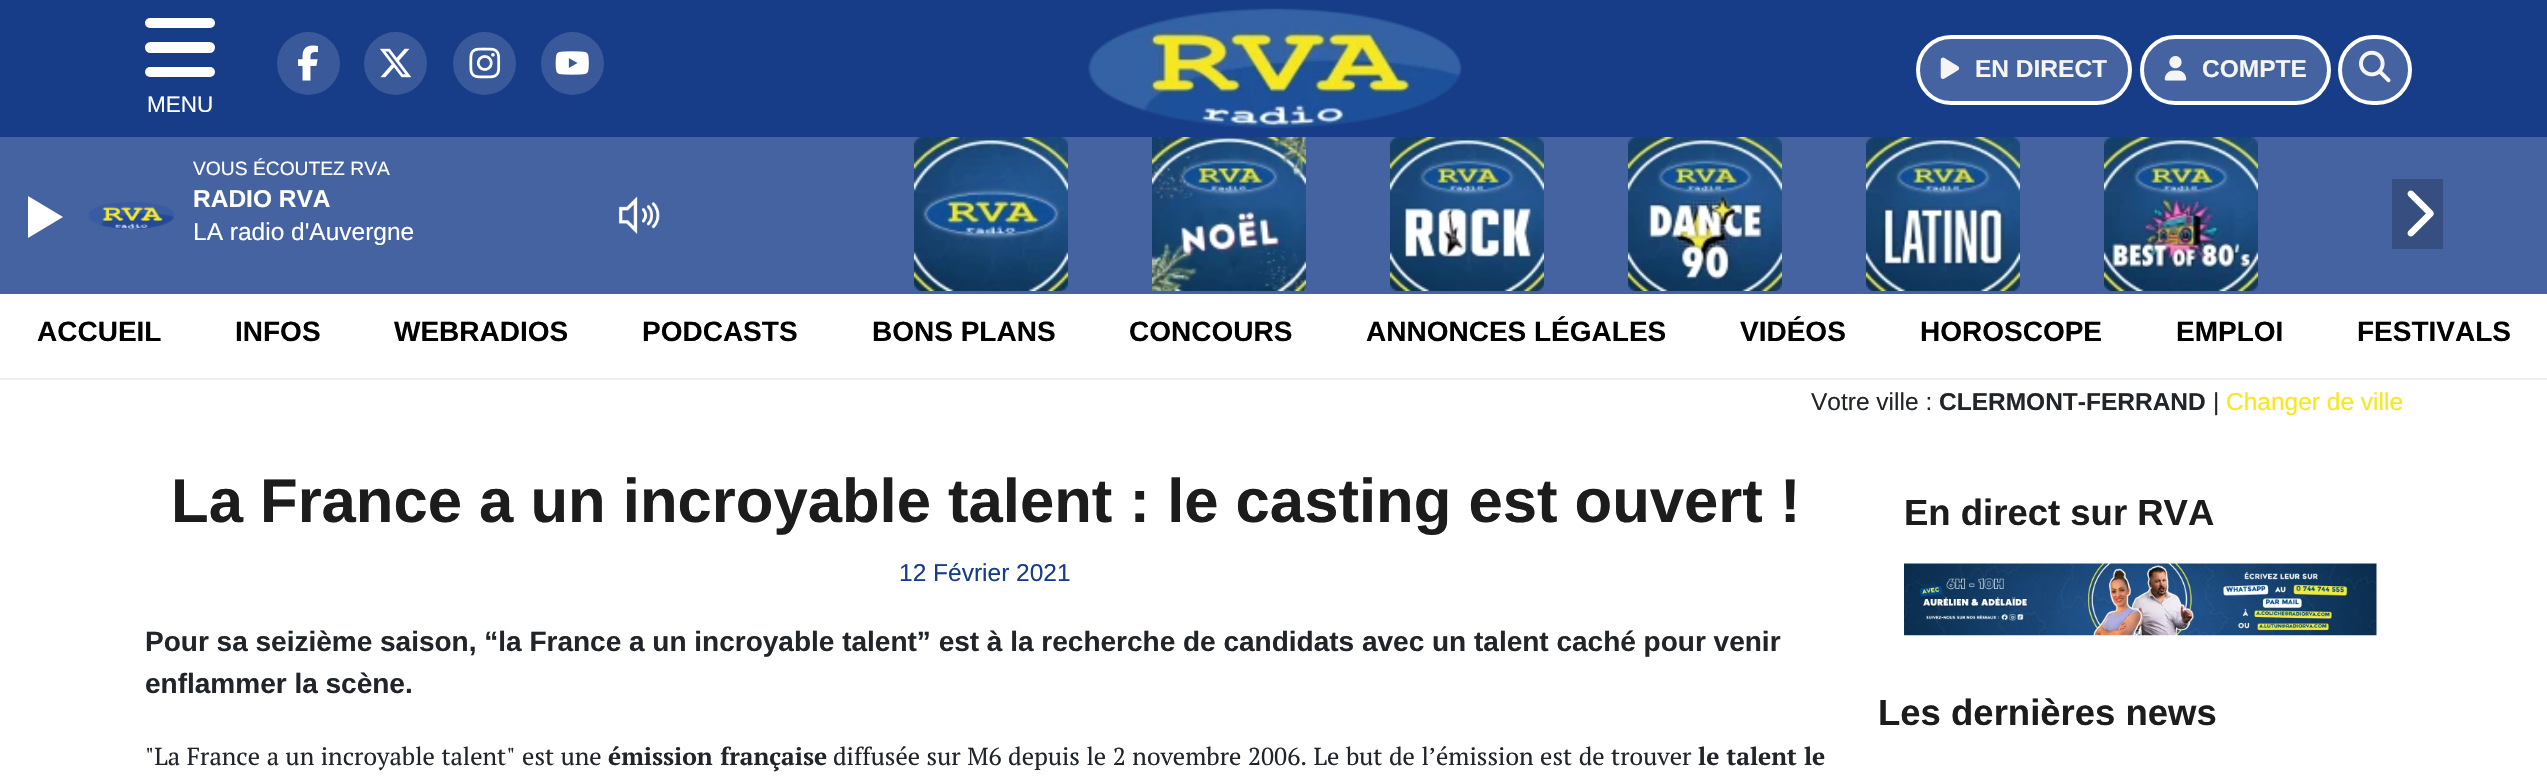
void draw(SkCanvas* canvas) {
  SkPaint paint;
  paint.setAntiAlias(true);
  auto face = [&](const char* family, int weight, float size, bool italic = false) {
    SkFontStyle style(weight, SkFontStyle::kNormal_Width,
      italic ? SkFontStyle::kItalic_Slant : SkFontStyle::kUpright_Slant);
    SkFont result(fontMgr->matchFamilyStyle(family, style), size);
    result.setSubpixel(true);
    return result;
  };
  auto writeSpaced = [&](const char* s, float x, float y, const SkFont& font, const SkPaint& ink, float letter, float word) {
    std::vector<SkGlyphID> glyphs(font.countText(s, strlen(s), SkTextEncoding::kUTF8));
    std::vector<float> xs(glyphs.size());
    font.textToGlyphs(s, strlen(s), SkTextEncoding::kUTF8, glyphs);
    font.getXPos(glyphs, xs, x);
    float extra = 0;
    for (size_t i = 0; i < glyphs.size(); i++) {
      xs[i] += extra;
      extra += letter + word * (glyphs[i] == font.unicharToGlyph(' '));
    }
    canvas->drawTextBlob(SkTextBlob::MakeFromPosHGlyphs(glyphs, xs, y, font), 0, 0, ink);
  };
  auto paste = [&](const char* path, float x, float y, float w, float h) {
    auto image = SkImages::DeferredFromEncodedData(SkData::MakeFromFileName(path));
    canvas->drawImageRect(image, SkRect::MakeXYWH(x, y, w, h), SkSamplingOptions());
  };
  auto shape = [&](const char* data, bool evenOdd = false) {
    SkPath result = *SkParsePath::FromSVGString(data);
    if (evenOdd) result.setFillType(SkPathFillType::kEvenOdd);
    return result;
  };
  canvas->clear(0xffffffff);
  paint.setColor(0xff173c88);
  canvas->drawRect(SkRect::MakeXYWH(0, 0, 2547, 137), paint);
  paint.setColor(0xff3a599a);
  canvas->drawCircle(308.5f, 63.5f, 31.5f, paint);
  paste("img/1.png", 298, 45, 20, 36);
  canvas->drawCircle(395.5f, 63.5f, 31.5f, paint);
  paste("img/2.png", 380, 48, 32, 30);
  canvas->drawCircle(484.5f, 63.5f, 31.5f, paint);
  paste("img/3.png", 469, 47, 32, 32);
  canvas->drawCircle(572.5f, 63.5f, 31.5f, paint);
  paste("img/4.png", 555, 51, 34, 24);
  paste("img/5.png", 1088, 8, 374, 120);
  paint.setColor(0xff4563a0);
  canvas->drawRoundRect(SkRect::MakeXYWH(1918, 37, 212, 66), 33, 33, paint);
  paint.setStroke(true);
  paint.setStrokeWidth(4);
  paint.setColor(0xffffffff);
  canvas->drawRoundRect(SkRect::MakeXYWH(1918, 37, 212, 66), 33, 33, paint);
  paste("img/6.png", 1940, 57, 20, 22);
  paint.setStroke(false);
  paint.setColor(0xff4563a0);
  canvas->drawRoundRect(SkRect::MakeXYWH(2142, 37, 187, 66), 33, 33, paint);
  paint.setStroke(true);
  paint.setColor(0xffffffff);
  canvas->drawRoundRect(SkRect::MakeXYWH(2142, 37, 187, 66), 33, 33, paint);
  paste("img/7.png", 2164, 56, 23, 25);
  paint.setStroke(false);
  paint.setColor(0xff4563a0);
  canvas->drawRoundRect(SkRect::MakeXYWH(2340, 37, 70, 66), 33, 33, paint);
  paint.setStroke(true);
  paint.setColor(0xffffffff);
  canvas->drawRoundRect(SkRect::MakeXYWH(2340, 37, 70, 66), 33, 33, paint);
  paste("img/8.png", 2359, 50, 32, 33);
  paint.setStroke(false);
  canvas->drawRoundRect(SkRect::MakeXYWH(145, 18, 70, 10), 5, 5, paint);
  canvas->drawRoundRect(SkRect::MakeXYWH(145, 42, 70, 11), 5.5f, 5.5f, paint);
  canvas->drawRoundRect(SkRect::MakeXYWH(145, 67, 70, 10), 5, 5, paint);
  paint.setColor(0xffeeeeee);
  canvas->drawRect(SkRect::MakeXYWH(0, 378, 2547, 2), paint);
  paste("img/9.png", 1904, 563, 473, 73);
  paint.setColor(0xff4563a0);
  canvas->drawRect(SkRect::MakeXYWH(0, 137, 2547, 157), paint);
  paste("img/10.png", 88, 202, 87, 28);
  paint.setColor(0xffffffff);
  canvas->drawPath(shape("M28 238V196L63 217Z"), paint);
  paste("img/11.png", 618, 196, 42, 38);
  paste("img/12.png", 914, 137, 154, 154);
  paste("img/13.png", 1152, 137, 154, 154);
  paste("img/14.png", 1390, 137, 154, 154);
  paste("img/15.png", 1628, 137, 154, 154);
  paste("img/16.png", 1866, 137, 154, 154);
  paste("img/17.png", 2104, 137, 154, 154);
  paint.setColor(0xff374f80);
  canvas->drawRect(SkRect::MakeXYWH(2392, 179, 51, 70), paint);
  paste("img/18.png", 2407, 190, 27, 47);
  auto f0 = face("Liberation Sans", 700, 24.5f);
  paint.setColor(0xfff5f5f5);
  canvas->drawString("EN DIRECT", 1975, 77, f0, paint);
  canvas->drawString("COMPTE", 2202, 77, f0, paint);
  canvas->save();
  canvas->clipRect(SkRect::MakeXYWH(145, 18, 70, 94));
  auto f1 = face("Liberation Sans", 400, 22.5f);
  paint.setColor(0xffffffff);
  canvas->drawString("MENU", 147, 112, f1, paint);
  canvas->restore();
  auto f2 = face("Liberation Sans", 700, 28);
  paint.setColor(0xff000000);
  {
    const struct { const char* s; float x, y; } items[] = {
      {"ACCUEIL", 37, 341},
      {"INFOS", 235, 341},
      {"WEBRADIOS", 394, 341},
      {"PODCASTS", 642, 341},
      {"BONS PLANS", 872, 341},
      {"CONCOURS", 1129, 341},
      {"ANNONCES LÉGALES", 1366, 341},
      {"VIDÉOS", 1740, 341},
      {"HOROSCOPE", 1920, 341},
      {"EMPLOI", 2176, 341},
      {"FESTIVALS", 2357, 341},
    };
    for (auto [s, x, y] : items) {
      canvas->drawString(s, x, y, f2, paint);
    }
  }
  auto f3 = face("Liberation Sans", 400, 24.5f);
  paint.setColor(0xff212529);
  canvas->drawString("Votre ville :", 1811, 410, f3, paint);
  canvas->drawString("CLERMONT-FERRAND", 1939, 410, f0, paint);
  canvas->drawString("|", 2213, 410, f3, paint);
  paint.setColor(0xfff7e81e);
  canvas->drawString("Changer de ville", 2226, 410, f3, paint);
  auto f4 = face("Liberation Sans", 700, 61.6f);
  paint.setColor(0xff1c1c1c);
  canvas->drawString("La France a un incroyable talent : le casting est ouvert !", 171, 522, f4, paint);
  paint.setColor(0xff173c88);
  canvas->drawString("12 Février 2021", 899, 581, f3, paint);
  paint.setColor(0xff212529);
  canvas->drawString("Pour sa seizième saison, “la France a un incroyable talent” est à la recherche de candidats avec un talent caché pour venir", 145, 651, f2, paint);
  canvas->drawString("enflammer la scène.", 145, 693, f2, paint);
  auto f5 = face("PT Serif", 400, 24.5f);
  writeSpaced("\"La France a un incroyable talent\" est une", 145, 765, f5, paint, 0, 0.6f);
  auto f6 = face("PT Serif", 700, 24.5f);
  writeSpaced("émission française", 608, 765, f6, paint, 0, 1);
  writeSpaced("diffusée sur M6 depuis le 2 novembre 2006. Le but de l’émission est de trouver", 833, 765, f5, paint, 0, 0.6f);
  writeSpaced("le talent le", 1698, 765, f6, paint, 0, 0.6f);
  auto f7 = face("Liberation Sans", 700, 36.5f);
  paint.setColor(0xff1c1c1c);
  canvas->drawString("En direct sur RVA", 1904, 525, f7, paint);
  canvas->drawString("Les dernières news", 1878, 725, f7, paint);
  auto f8 = face("Liberation Sans", 400, 19.25f);
  paint.setColor(0xffffffff);
  canvas->drawString("VOUS ÉCOUTEZ RVA", 193, 175, f8, paint);
  canvas->drawString("RADIO RVA", 193, 207, f0, paint);
  canvas->drawString("LA radio d'Auvergne", 193, 240, f3, paint);
}
